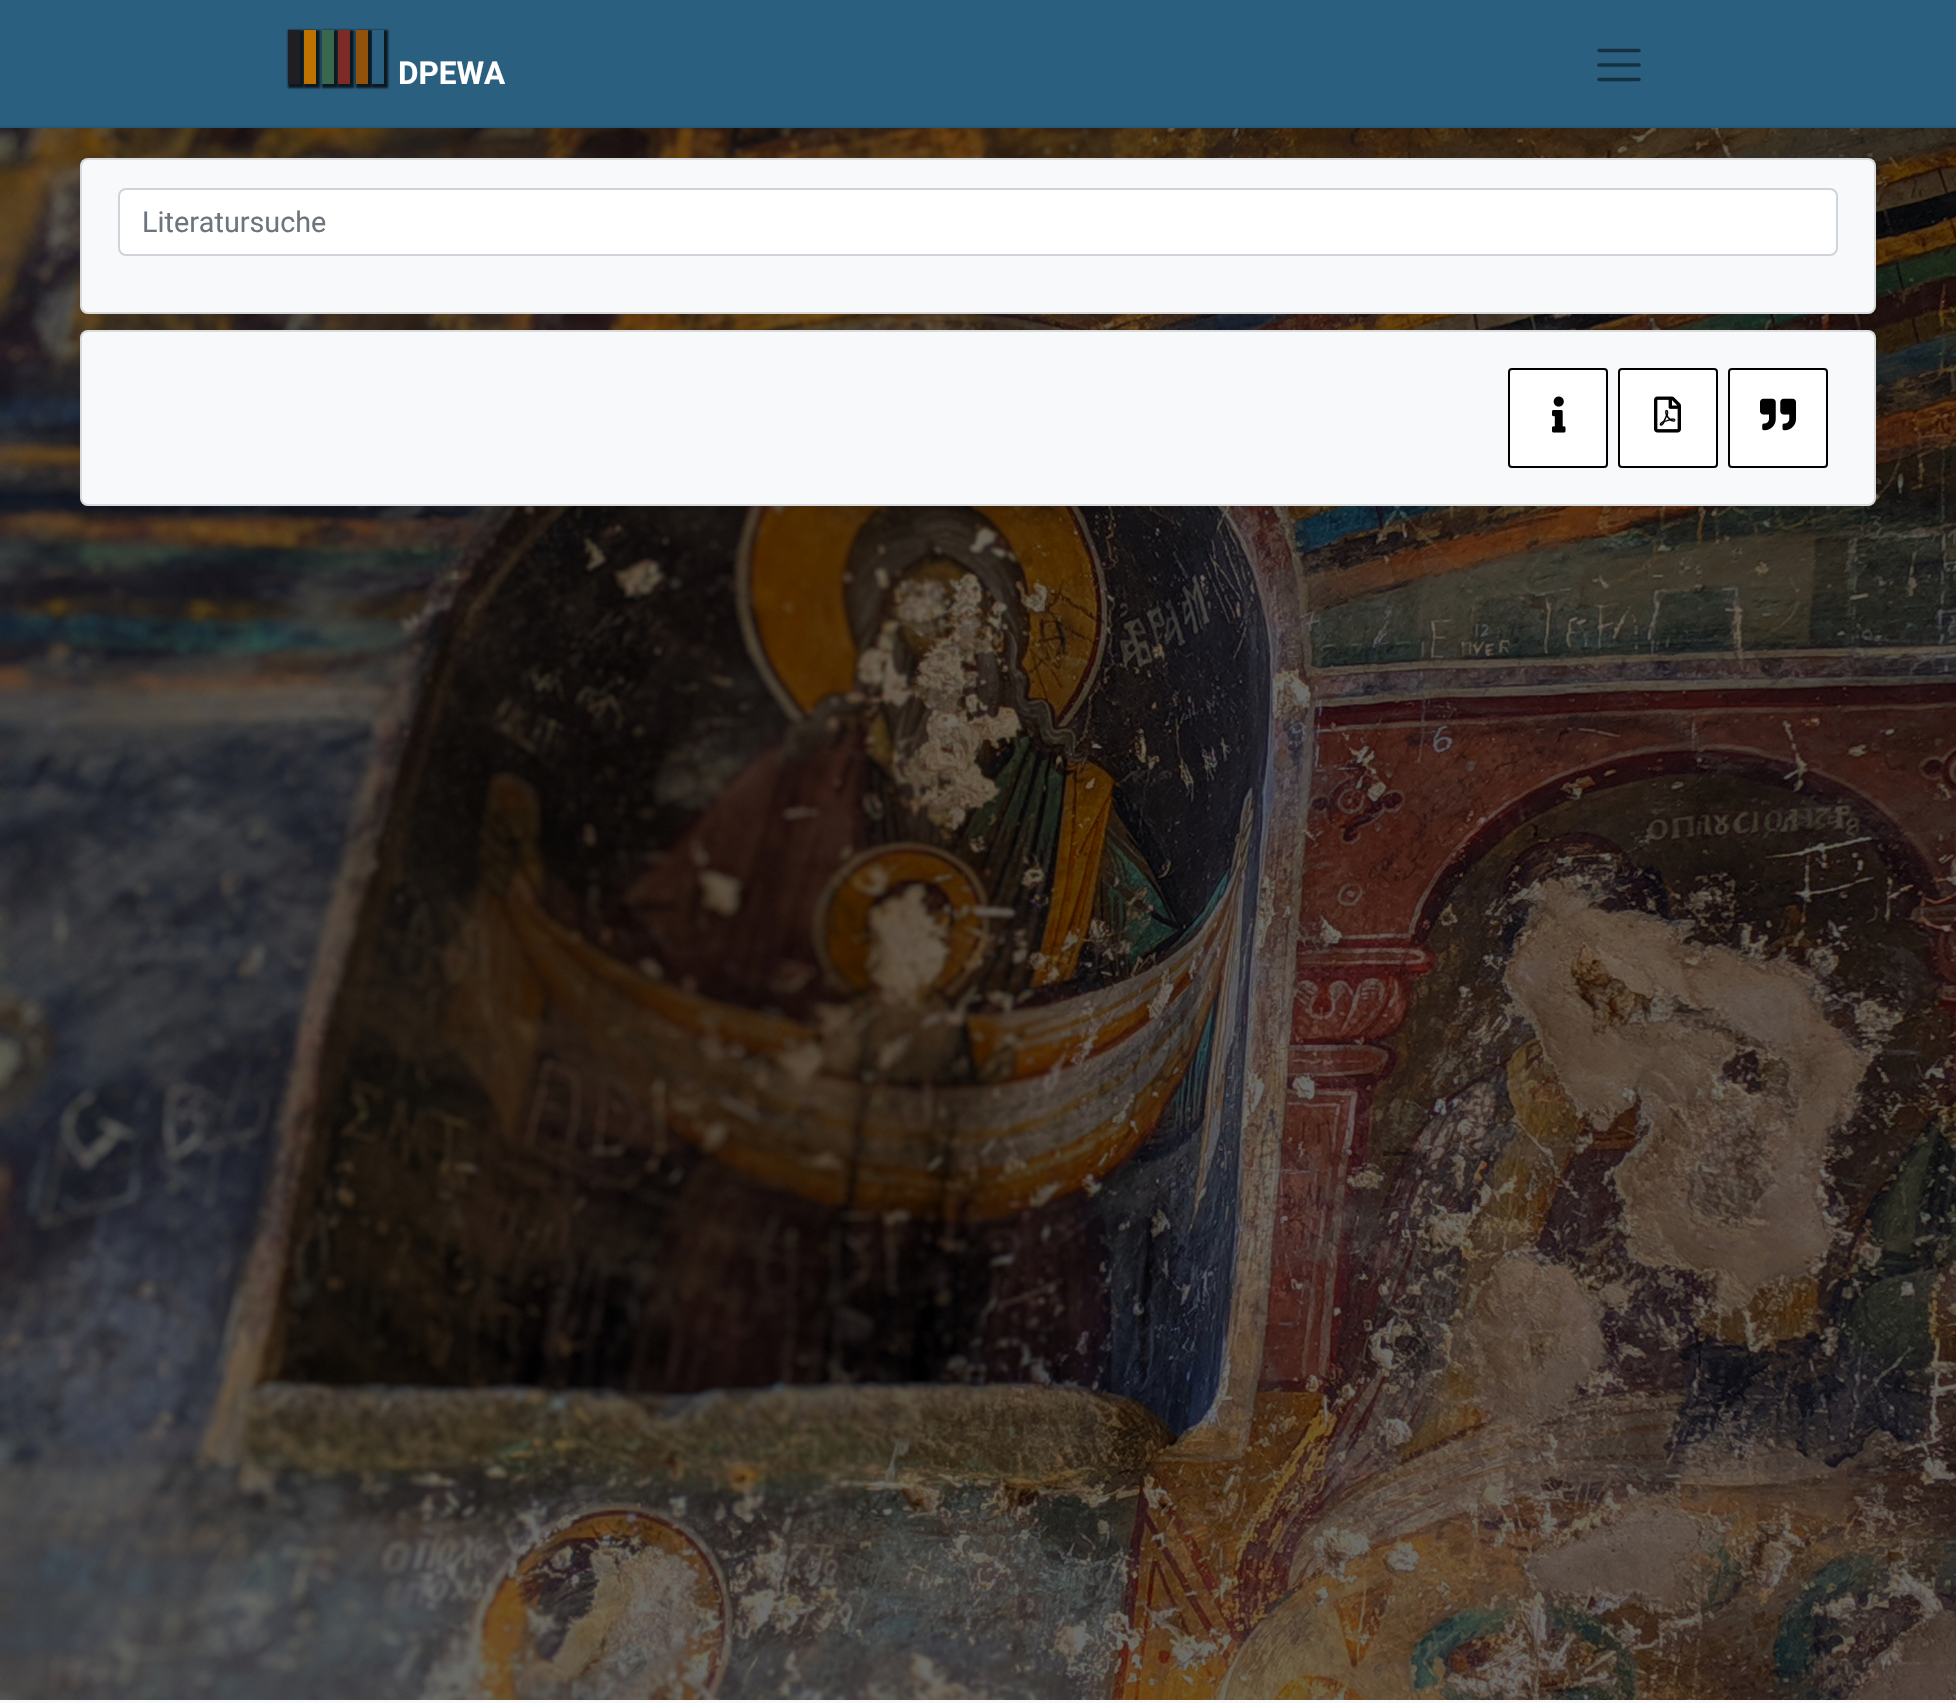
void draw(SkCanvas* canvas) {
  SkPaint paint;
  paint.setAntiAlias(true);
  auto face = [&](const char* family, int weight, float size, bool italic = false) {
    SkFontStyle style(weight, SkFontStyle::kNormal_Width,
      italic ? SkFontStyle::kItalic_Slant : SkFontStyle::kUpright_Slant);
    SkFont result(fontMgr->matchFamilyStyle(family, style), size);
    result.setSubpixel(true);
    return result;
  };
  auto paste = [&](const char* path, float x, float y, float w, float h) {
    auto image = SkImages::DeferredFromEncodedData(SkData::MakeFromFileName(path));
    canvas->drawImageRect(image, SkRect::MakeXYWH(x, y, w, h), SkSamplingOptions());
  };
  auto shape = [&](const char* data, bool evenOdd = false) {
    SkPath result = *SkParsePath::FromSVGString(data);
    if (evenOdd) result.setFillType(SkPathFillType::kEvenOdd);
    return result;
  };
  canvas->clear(0xffffffff);
  paste("img/1.png", 0, 128, 1956, 1572);
  paint.setColor(0x0d000000);
  paint.setMaskFilter(SkMaskFilter::MakeBlur(kNormal_SkBlurStyle, 14.5f));
  canvas->drawRect(SkRect::MakeXYWH(0, 14, 1956, 128), paint);
  paint.setMaskFilter(nullptr);
  paint.setColor(0xff2a5f7f);
  canvas->drawRect(SkRect::MakeXYWH(0, 0, 1956, 126), paint);
  paint.setColor(0xff265672);
  canvas->drawRect(SkRect::MakeXYWH(0, 126, 1956, 2), paint);
  paint.setColor(0xbf000000);
  paint.setMaskFilter(SkMaskFilter::MakeBlur(kNormal_SkBlurStyle, 1));
  canvas->drawRect(SkRect::MakeXYWH(288, 30, 16, 58), paint);
  paint.setMaskFilter(nullptr);
  paint.setColor(0xff1f1f23);
  canvas->drawRect(SkRect::MakeXYWH(288, 30, 12, 54), paint);
  paint.setColor(0xbf000000);
  paint.setMaskFilter(SkMaskFilter::MakeBlur(kNormal_SkBlurStyle, 1));
  canvas->drawRect(SkRect::MakeXYWH(304, 30, 16, 58), paint);
  paint.setMaskFilter(nullptr);
  paint.setColor(0xffbe7200);
  canvas->drawRect(SkRect::MakeXYWH(304, 30, 12, 54), paint);
  paint.setColor(0xbf000000);
  paint.setMaskFilter(SkMaskFilter::MakeBlur(kNormal_SkBlurStyle, 1));
  canvas->drawRect(SkRect::MakeXYWH(322, 30, 16, 58), paint);
  paint.setMaskFilter(nullptr);
  paint.setColor(0xff3a684e);
  canvas->drawRect(SkRect::MakeXYWH(322, 30, 12, 54), paint);
  paint.setColor(0xbf000000);
  paint.setMaskFilter(SkMaskFilter::MakeBlur(kNormal_SkBlurStyle, 1));
  canvas->drawRect(SkRect::MakeXYWH(338, 30, 16, 58), paint);
  paint.setMaskFilter(nullptr);
  paint.setColor(0xff7c2b27);
  canvas->drawRect(SkRect::MakeXYWH(338, 30, 12, 54), paint);
  paint.setColor(0xbf000000);
  paint.setMaskFilter(SkMaskFilter::MakeBlur(kNormal_SkBlurStyle, 1));
  canvas->drawRect(SkRect::MakeXYWH(356, 30, 16, 58), paint);
  paint.setMaskFilter(nullptr);
  paint.setColor(0xff92520b);
  canvas->drawRect(SkRect::MakeXYWH(356, 30, 12, 54), paint);
  paint.setColor(0xbf000000);
  paint.setMaskFilter(SkMaskFilter::MakeBlur(kNormal_SkBlurStyle, 1));
  canvas->drawRect(SkRect::MakeXYWH(372, 30, 16, 58), paint);
  paint.setMaskFilter(nullptr);
  paint.setColor(0xff2a5f7f);
  canvas->drawRect(SkRect::MakeXYWH(372, 30, 12, 54), paint);
  paint.setStroke(true);
  paint.setStrokeWidth(3.6f);
  paint.setStrokeCap(SkPaint::kRound_Cap);
  paint.setColor(0xff153040);
  canvas->drawPath(shape("M1599 50.5H1639M1599 65H1639M1599 79.5H1639"), paint);
  paint.setStroke(false);
  paint.setColor(0xfff8f9fa);
  canvas->drawRoundRect(SkRect::MakeXYWH(80, 158, 1796, 156), 8, 8, paint);
  paint.setStroke(true);
  paint.setStrokeWidth(2);
  paint.setStrokeCap(SkPaint::kButt_Cap);
  paint.setColor(0x1f000000);
  canvas->drawRoundRect(SkRect::MakeXYWH(81, 159, 1794, 154), 7, 7, paint);
  paint.setStroke(false);
  paint.setColor(0xffffffff);
  canvas->drawRoundRect(SkRect::MakeXYWH(120, 190, 1716, 64), 5, 5, paint);
  paint.setStroke(true);
  paint.setColor(0xffced4da);
  canvas->drawRoundRect(SkRect::MakeXYWH(119, 189, 1718, 66), 7, 7, paint);
  paint.setStroke(false);
  paint.setColor(0xfff8f9fa);
  canvas->drawRoundRect(SkRect::MakeXYWH(80, 330, 1796, 176), 8, 8, paint);
  paint.setStroke(true);
  paint.setColor(0x1f000000);
  canvas->drawRoundRect(SkRect::MakeXYWH(81, 331, 1794, 174), 7, 7, paint);
  paint.setStroke(false);
  paint.setColor(0xffffffff);
  canvas->drawRoundRect(SkRect::MakeXYWH(1509, 369, 98, 98), 3, 3, paint);
  paint.setStroke(true);
  paint.setColor(0xff000000);
  canvas->drawRoundRect(SkRect::MakeXYWH(1509, 369, 98, 98), 3, 3, paint);
  paste("img/2.png", 1552, 396, 14, 37);
  paint.setStroke(false);
  paint.setColor(0xffffffff);
  canvas->drawRoundRect(SkRect::MakeXYWH(1619, 369, 98, 98), 3, 3, paint);
  paint.setStroke(true);
  paint.setColor(0xff000000);
  canvas->drawRoundRect(SkRect::MakeXYWH(1619, 369, 98, 98), 3, 3, paint);
  paste("img/3.png", 1654, 396, 27, 37);
  paint.setStroke(false);
  paint.setColor(0xffffffff);
  canvas->drawRoundRect(SkRect::MakeXYWH(1729, 369, 98, 98), 3, 3, paint);
  paint.setStroke(true);
  paint.setColor(0xff000000);
  canvas->drawRoundRect(SkRect::MakeXYWH(1729, 369, 98, 98), 3, 3, paint);
  paste("img/4.png", 1760, 398, 36, 33);
  paint.setStroke(false);
  paint.setColor(0xfff8f9fa);
  canvas->drawRect(SkRect::MakeXYWH(0, 1700, 1956, 3), paint);
  auto f0 = face("Roboto", 700, 31.5f);
  paint.setColor(0xffffffff);
  canvas->drawString("DPEWA", 398, 84, f0, paint);
  auto f1 = face("Roboto", 400, 28.75f);
  paint.setColor(0xff6c757d);
  canvas->drawString("Literatursuche", 142, 232, f1, paint);
}
